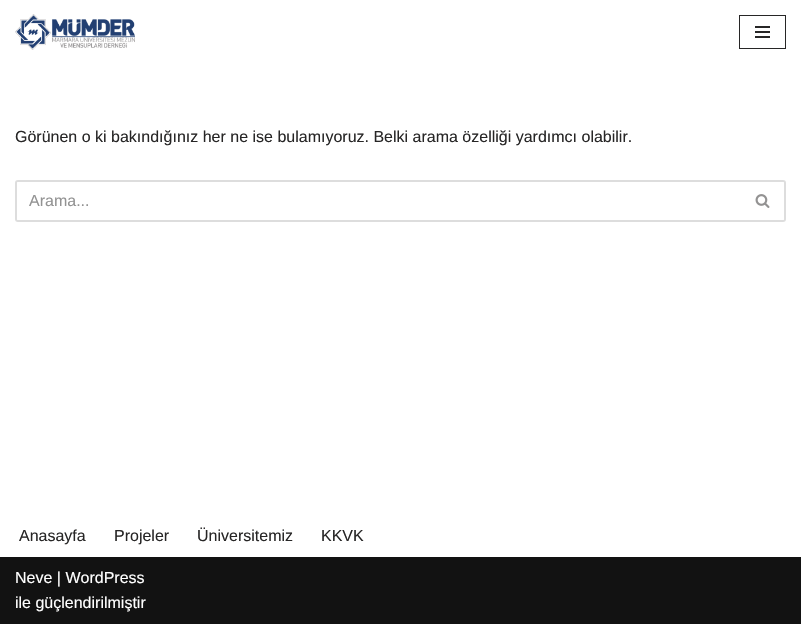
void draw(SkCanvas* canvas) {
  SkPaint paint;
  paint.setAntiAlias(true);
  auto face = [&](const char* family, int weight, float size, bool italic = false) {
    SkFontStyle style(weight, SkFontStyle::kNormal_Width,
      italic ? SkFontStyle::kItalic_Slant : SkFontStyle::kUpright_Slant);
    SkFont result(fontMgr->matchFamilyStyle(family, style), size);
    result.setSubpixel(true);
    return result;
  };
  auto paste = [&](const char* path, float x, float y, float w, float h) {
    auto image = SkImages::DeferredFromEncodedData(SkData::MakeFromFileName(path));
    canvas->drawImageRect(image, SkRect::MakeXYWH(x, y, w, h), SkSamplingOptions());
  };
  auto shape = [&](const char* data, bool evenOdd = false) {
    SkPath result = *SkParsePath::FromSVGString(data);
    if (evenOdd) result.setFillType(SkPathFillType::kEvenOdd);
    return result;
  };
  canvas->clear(0xffffffff);
  paste("img/1.png", 15, 14, 120, 36);
  paint.setStroke(true);
  paint.setStrokeWidth(1);
  paint.setColor(0xff272626);
  canvas->drawRect(SkRect::MakeXYWH(739.5f, 15.5f, 46, 33), paint);
  paint.setStroke(false);
  {
    const struct { float x, y, w, h; SkColor color; } items[] = {
      {755, 26, 15, 2, 0xff272626},
      {755, 31, 15, 2, 0xff272626},
      {755, 36, 15, 2, 0xff272626},
    };
    for (auto [x, y, w, h, color] : items) {
      paint.setColor(color);
      canvas->drawRect(SkRect::MakeXYWH(x, y, w, h), paint);
    }
  }
  paint.setColor(0xffdddddd);
  canvas->drawPath(shape("M18 180H741V222H18C16 222 15 221 15 219V183C15 181 16 180 18 180ZM18 182H741V220H18C17 220 17 220 17 219V183C17 182 17 182 18 182Z", true), paint);
  canvas->drawPath(shape("M741 180H783C785 180 786 181 786 183V219C786 221 785 222 783 222H741ZM741 182H783C784 182 784 182 784 183V219C784 220 784 220 783 220H741Z", true), paint);
  paste("img/2.png", 755, 194, 15, 14);
  paint.setColor(0xff121212);
  canvas->drawRect(SkRect::MakeXYWH(0, 557, 801, 67), paint);
  auto f0 = face("Liberation Sans", 400, 16);
  paint.setColor(0xff272626);
  canvas->drawString("Görünen o ki bakındığınız her ne ise bulamıyoruz. Belki arama özelliği yardımcı olabilir.", 15, 142, f0, paint);
  paint.setColor(0xff939393);
  canvas->drawString("Arama...", 29, 206, f0, paint);
  paint.setColor(0xff272626);
  {
    const struct { const char* s; float x, y; } items[] = {
      {"Anasayfa", 19, 541},
      {"Projeler", 114, 541},
      {"Üniversitemiz", 197, 541},
      {"KKVK", 321, 541},
    };
    for (auto [s, x, y] : items) {
      canvas->drawString(s, x, y, f0, paint);
    }
  }
  paint.setColor(0xffffffff);
  canvas->drawString("Neve | WordPress", 15, 583, f0, paint);
  canvas->drawString("ile güçlendirilmiştir", 15, 608, f0, paint);
}
